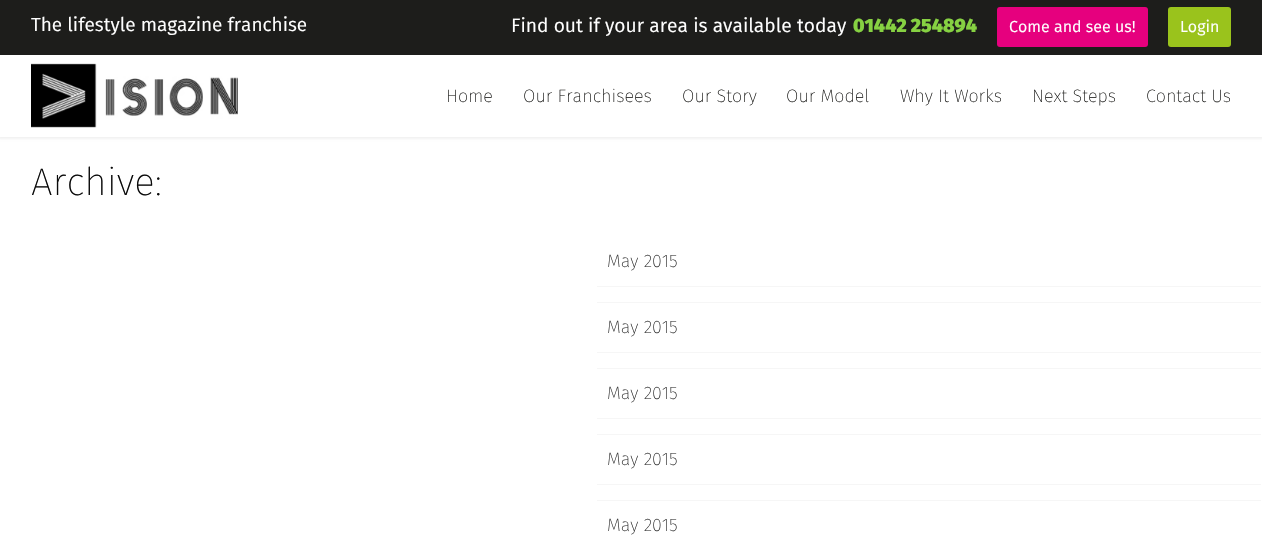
void draw(SkCanvas* canvas) {
  SkPaint paint;
  paint.setAntiAlias(true);
  auto face = [&](const char* family, int weight, float size, bool italic = false) {
    SkFontStyle style(weight, SkFontStyle::kNormal_Width,
      italic ? SkFontStyle::kItalic_Slant : SkFontStyle::kUpright_Slant);
    SkFont result(fontMgr->matchFamilyStyle(family, style), size);
    result.setSubpixel(true);
    return result;
  };
  auto paste = [&](const char* path, float x, float y, float w, float h) {
    auto image = SkImages::DeferredFromEncodedData(SkData::MakeFromFileName(path));
    canvas->drawImageRect(image, SkRect::MakeXYWH(x, y, w, h), SkSamplingOptions());
  };
  canvas->clear(0xffffffff);
  paint.setColor(0x0d000000);
  paint.setMaskFilter(SkMaskFilter::MakeBlur(kNormal_SkBlurStyle, 1));
  canvas->drawRect(SkRect::MakeXYWH(-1, 0, 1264, 139), paint);
  paint.setMaskFilter(nullptr);
  paint.setColor(0xffffffff);
  canvas->drawRect(SkRect::MakeXYWH(0, 55, 1262, 82), paint);
  paint.setColor(0xff1d1d1b);
  canvas->drawRect(SkRect::MakeXYWH(0, 0, 1262, 55), paint);
  paint.setColor(0xffe6007e);
  canvas->drawRoundRect(SkRect::MakeXYWH(997, 7, 151, 40), 3, 3, paint);
  paint.setColor(0xff9ac31c);
  canvas->drawRoundRect(SkRect::MakeXYWH(1168, 7, 63, 40), 3, 3, paint);
  paste("img/1.png", 31, 63, 207, 65);
  {
    const struct { float x, y, w, h; SkColor color; } items[] = {
      {597, 286, 664, 1, 0xfff6f6f6},
      {597, 302, 664, 1, 0xfff6f6f6},
      {597, 352, 664, 1, 0xfff6f6f6},
      {597, 368, 664, 1, 0xfff6f6f6},
      {597, 418, 664, 1, 0xfff6f6f6},
      {597, 434, 664, 1, 0xfff6f6f6},
      {597, 484, 664, 1, 0xfff6f6f6},
      {597, 500, 664, 1, 0xfff6f6f6},
    };
    for (auto [x, y, w, h, color] : items) {
      paint.setColor(color);
      canvas->drawRect(SkRect::MakeXYWH(x, y, w, h), paint);
    }
  }
  auto f0 = face("Fira Sans", 400, 19);
  paint.setColor(0xffffffff);
  canvas->drawString("The lifestyle magazine franchise", 31, 31, f0, paint);
  auto f1 = face("Fira Sans", 400, 19.25f);
  canvas->drawString("Find out if your area is available today", 511, 32, f1, paint);
  auto f2 = face("Fira Sans", 900, 19.25f);
  paint.setColor(0xff86d142);
  canvas->drawString("01442 254894", 853, 32, f2, paint);
  auto f3 = face("Fira Sans", 400, 16);
  paint.setColor(0xffffffff);
  canvas->drawString("Come and see us!", 1009, 32, f3, paint);
  canvas->drawString("Login", 1180, 32, f3, paint);
  auto f4 = face("Fira Sans", 200, 18);
  paint.setColor(0xff1d1d1b);
  {
    const struct { const char* s; float x, y; } items[] = {
      {"Home", 446, 102},
      {"Our Franchisees", 523, 102},
      {"Our Story", 682, 102},
      {"Our Model", 786, 102},
      {"Why It Works", 900, 102},
      {"Next Steps", 1032, 102},
      {"Contact Us", 1146, 102},
    };
    for (auto [s, x, y] : items) {
      canvas->drawString(s, x, y, f4, paint);
    }
  }
  auto f5 = face("Fira Sans", 200, 38.5f);
  paint.setColor(0xff0a0a0a);
  canvas->drawString("Archive:", 31, 195, f5, paint);
  paint.setColor(0xff333333);
  {
    const struct { const char* s; float x, y; } items[] = {
      {"May 2015", 607, 267},
      {"May 2015", 607, 333},
      {"May 2015", 607, 399},
      {"May 2015", 607, 465},
      {"May 2015", 607, 531},
    };
    for (auto [s, x, y] : items) {
      canvas->drawString(s, x, y, f4, paint);
    }
  }
}
